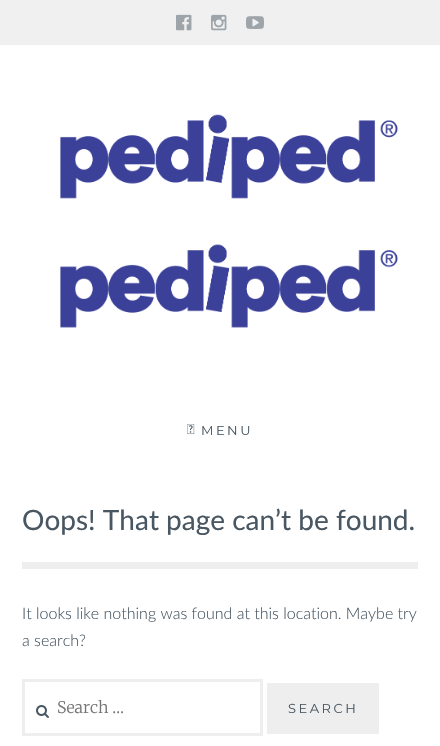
void draw(SkCanvas* canvas) {
  SkPaint paint;
  paint.setAntiAlias(true);
  auto face = [&](const char* family, int weight, float size, bool italic = false) {
    SkFontStyle style(weight, SkFontStyle::kNormal_Width,
      italic ? SkFontStyle::kItalic_Slant : SkFontStyle::kUpright_Slant);
    SkFont result(fontMgr->matchFamilyStyle(family, style), size);
    result.setSubpixel(true);
    return result;
  };
  auto writeSpaced = [&](const char* s, float x, float y, const SkFont& font, const SkPaint& ink, float letter, float word) {
    std::vector<SkGlyphID> glyphs(font.countText(s, strlen(s), SkTextEncoding::kUTF8));
    std::vector<float> xs(glyphs.size());
    font.textToGlyphs(s, strlen(s), SkTextEncoding::kUTF8, glyphs);
    font.getXPos(glyphs, xs, x);
    float extra = 0;
    for (size_t i = 0; i < glyphs.size(); i++) {
      xs[i] += extra;
      extra += letter + word * (glyphs[i] == font.unicharToGlyph(' '));
    }
    canvas->drawTextBlob(SkTextBlob::MakeFromPosHGlyphs(glyphs, xs, y, font), 0, 0, ink);
  };
  auto paste = [&](const char* path, float x, float y, float w, float h) {
    auto image = SkImages::DeferredFromEncodedData(SkData::MakeFromFileName(path));
    canvas->drawImageRect(image, SkRect::MakeXYWH(x, y, w, h), SkSamplingOptions());
  };
  canvas->clear(0xffffffff);
  paint.setColor(0xfff0f0f0);
  canvas->drawRect(SkRect::MakeXYWH(0, 0, 440, 45), paint);
  paste("img/1.png", 176, 14, 16, 17);
  paste("img/2.png", 211, 14, 16, 17);
  paste("img/3.png", 246, 16, 18, 13);
  paste("img/4.png", 60, 114, 338, 85);
  paste("img/5.png", 60, 244, 338, 84);
  paste("img/6.png", 187, 424, 8, 10);
  paint.setColor(0xffeeeeee);
  canvas->drawRect(SkRect::MakeXYWH(22, 562, 396, 7), paint);
  paint.setStroke(true);
  paint.setStrokeWidth(3);
  canvas->drawRect(SkRect::MakeXYWH(23.5f, 680.5f, 238, 54), paint);
  paste("img/7.png", 36, 705, 13, 13);
  paint.setStroke(false);
  canvas->drawRect(SkRect::MakeXYWH(267, 683, 112, 51), paint);
  auto f0 = face("Montserrat", 400, 13);
  paint.setColor(0xff495762);
  writeSpaced("MENU", 201, 435, f0, paint, 2.5f, 0);
  auto f1 = face("Lato", 400, 28);
  canvas->drawString("Oops! That page can’t be found.", 22, 530, f1, paint);
  auto f2 = face("Lato", 300, 16);
  canvas->drawString("It looks like nothing was found at this location. Maybe try", 22, 619, f2, paint);
  canvas->drawString("a search?", 22, 646, f2, paint);
  auto f3 = face("Merriweather", 300, 16);
  paint.setColor(0xff757575);
  canvas->drawString("Search …", 57, 713, f3, paint);
  paint.setColor(0xff495762);
  writeSpaced("SEARCH", 288, 713, f0, paint, 2.5f, 0);
}
